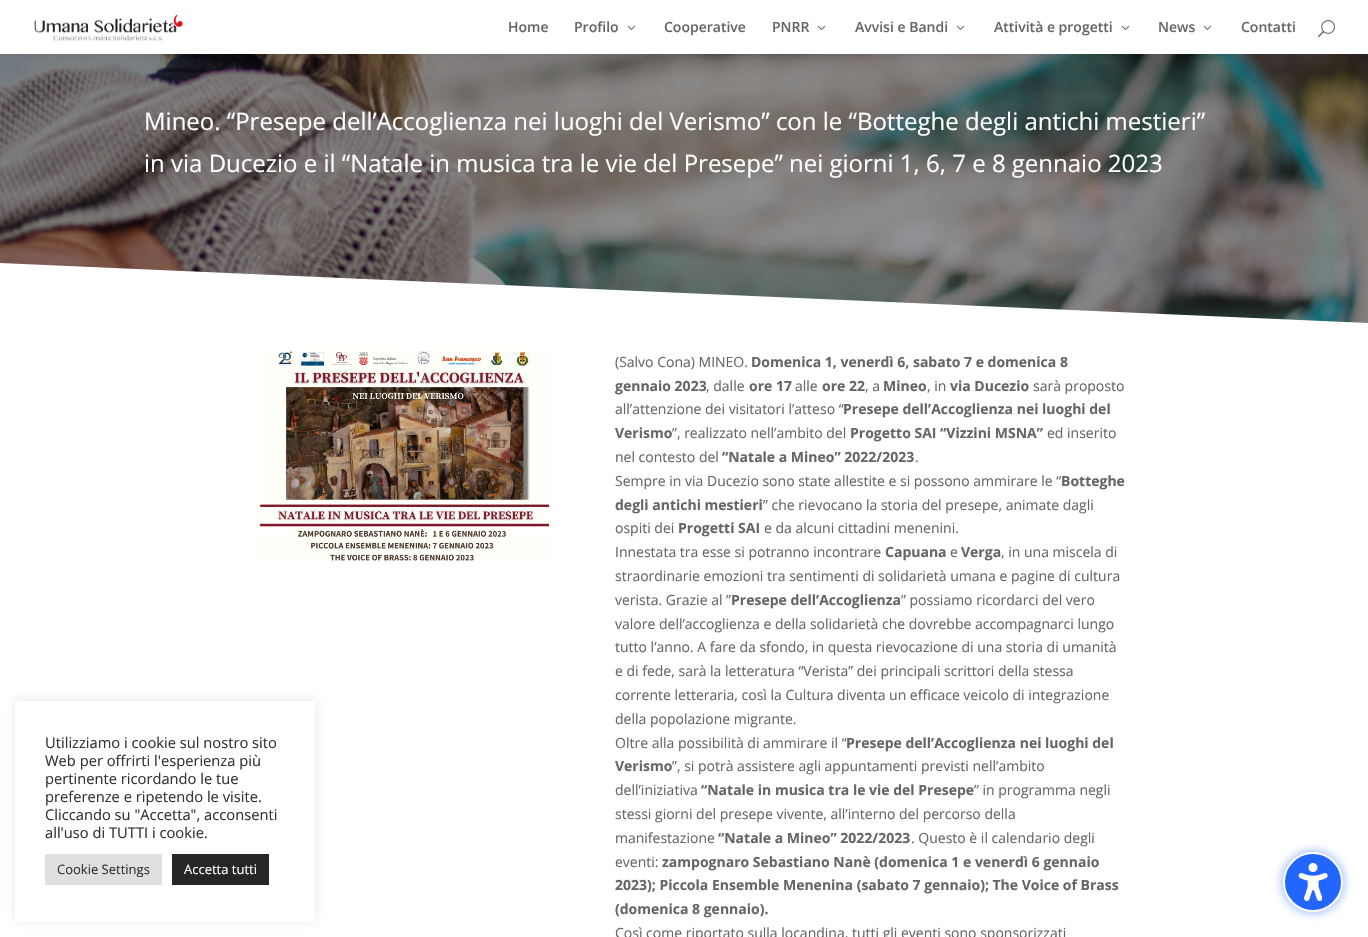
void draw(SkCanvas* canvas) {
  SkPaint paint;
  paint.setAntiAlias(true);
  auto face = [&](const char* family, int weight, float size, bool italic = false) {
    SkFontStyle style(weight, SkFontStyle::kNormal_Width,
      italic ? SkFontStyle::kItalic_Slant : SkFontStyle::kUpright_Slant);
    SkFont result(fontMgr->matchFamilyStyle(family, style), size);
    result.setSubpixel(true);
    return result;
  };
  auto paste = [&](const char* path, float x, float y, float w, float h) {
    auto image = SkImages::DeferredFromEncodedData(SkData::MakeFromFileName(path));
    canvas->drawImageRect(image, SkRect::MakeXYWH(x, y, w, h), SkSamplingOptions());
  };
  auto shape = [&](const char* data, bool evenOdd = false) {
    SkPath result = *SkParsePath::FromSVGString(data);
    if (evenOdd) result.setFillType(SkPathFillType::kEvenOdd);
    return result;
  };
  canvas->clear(0xffffffff);
  paste("img/4.png", 0, 54, 1368, 269);
  paint.setColor(0x1a000000);
  paint.setMaskFilter(SkMaskFilter::MakeBlur(kNormal_SkBlurStyle, 3.5f));
  canvas->drawRect(SkRect::MakeXYWH(0, 0, 1368, 54), paint);
  paint.setMaskFilter(nullptr);
  paint.setColor(0xffffffff);
  canvas->drawRect(SkRect::MakeXYWH(0, 0, 1368, 54), paint);
  paste("img/1.png", 34, 14, 150, 27);
  paste("img/2.png", 627, 25, 9, 5);
  paste("img/2.png", 817, 25, 9, 5);
  paste("img/2.png", 956, 25, 9, 5);
  paste("img/2.png", 1121, 25, 9, 5);
  paste("img/2.png", 1203, 25, 9, 5);
  paste("img/3.png", 1318, 20, 17, 18);
  canvas->drawPath(shape("M0 263V323H1368Z"), paint);
  paste("img/5.png", 257, 350, 293, 213);
  canvas->save();
  canvas->clipPath(shape("M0 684H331V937H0ZM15 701H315V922H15Z", true), true);
  paint.setColor(0x4dacabab);
  paint.setMaskFilter(SkMaskFilter::MakeBlur(kNormal_SkBlurStyle, 5));
  canvas->drawRect(SkRect::MakeXYWH(15, 700, 300, 221), paint);
  paint.setMaskFilter(nullptr);
  canvas->restore();
  paint.setColor(0xffdedfe0);
  canvas->drawRect(SkRect::MakeXYWH(45, 854, 117, 31), paint);
  paint.setColor(0xff262626);
  canvas->drawRect(SkRect::MakeXYWH(172, 854, 97, 31), paint);
  paint.setColor(0x662266ff);
  paint.setMaskFilter(SkMaskFilter::MakeBlur(kNormal_SkBlurStyle, 4));
  canvas->drawRoundRect(SkRect::MakeXYWH(1281, 850, 64, 64), 32, 32, paint);
  paint.setMaskFilter(nullptr);
  paint.setColor(0xff2266ff);
  canvas->drawCircle(1313, 882, 29, paint);
  paint.setStroke(true);
  paint.setStrokeWidth(2);
  paint.setColor(0xffffffff);
  canvas->drawCircle(1313, 882, 29, paint);
  paste("img/6.png", 1298, 863, 30, 38);
  auto f0 = face("Open Sans", 600, 14);
  paint.setStroke(false);
  paint.setColor(0xff666666);
  {
    const struct { const char* s; float x, y; } items[] = {
      {"Home", 508, 32},
      {"Profilo", 574, 32},
      {"Cooperative", 664, 32},
      {"PNRR", 772, 32},
      {"Avvisi e Bandi", 855, 32},
      {"Attività e progetti", 994, 32},
      {"News", 1158, 32},
      {"Contatti", 1241, 32},
    };
    for (auto [s, x, y] : items) {
      canvas->drawString(s, x, y, f0, paint);
    }
  }
  auto f1 = face("Open Sans", 400, 24);
  paint.setColor(0xffffffff);
  canvas->drawString("Mineo. “Presepe dell’Accoglienza nei luoghi del Verismo” con le “Botteghe degli antichi mestieri”", 144, 130, f1, paint);
  canvas->drawString("in via Ducezio e il “Natale in musica tra le vie del Presepe” nei giorni 1, 6, 7 e 8 gennaio 2023", 144, 172, f1, paint);
  auto f2 = face("Open Sans", 400, 14);
  paint.setColor(0xff666666);
  canvas->drawString("(Salvo Cona) MINEO.", 615, 367, f2, paint);
  auto f3 = face("Open Sans", 700, 14);
  canvas->drawString("Domenica 1, venerdì 6, sabato 7 e domenica 8", 751, 367, f3, paint);
  canvas->drawString("gennaio 2023", 615, 391, f3, paint);
  canvas->drawString(", dalle", 706, 391, f2, paint);
  canvas->drawString("ore 17", 749, 391, f3, paint);
  canvas->drawString("alle", 795, 391, f2, paint);
  canvas->drawString("ore 22", 822, 391, f3, paint);
  canvas->drawString(", a", 865, 391, f2, paint);
  canvas->drawString("Mineo", 883, 391, f3, paint);
  canvas->drawString(", in", 927, 391, f2, paint);
  canvas->drawString("via Ducezio", 950, 391, f3, paint);
  canvas->drawString("sarà proposto", 1033, 391, f2, paint);
  canvas->drawString("all’attenzione dei visitatori l’atteso “", 615, 414, f2, paint);
  canvas->drawString("Presepe dell’Accoglienza nei luoghi del", 843, 414, f3, paint);
  canvas->drawString("Verismo", 615, 438, f3, paint);
  canvas->drawString("”, realizzato nell’ambito del", 672, 438, f2, paint);
  canvas->drawString("Progetto SAI “Vizzini MSNA”", 850, 438, f3, paint);
  canvas->drawString("ed inserito", 1047, 438, f2, paint);
  canvas->drawString("nel contesto del", 615, 462, f2, paint);
  canvas->drawString("“Natale a Mineo” 2022/2023", 722, 462, f3, paint);
  canvas->drawString(".", 915, 462, f2, paint);
  canvas->drawString("Sempre in via Ducezio sono state allestite e si possono ammirare le “", 615, 486, f2, paint);
  canvas->drawString("Botteghe", 1061, 486, f3, paint);
  canvas->drawString("degli antichi mestieri", 615, 510, f3, paint);
  canvas->drawString("” che rievocano la storia del presepe, animate dagli", 763, 510, f2, paint);
  canvas->drawString("ospiti dei", 615, 533, f2, paint);
  canvas->drawString("Progetti SAI", 678, 533, f3, paint);
  canvas->drawString("e da alcuni cittadini menenini.", 764, 533, f2, paint);
  canvas->drawString("Innestata tra esse si potranno incontrare", 615, 557, f2, paint);
  canvas->drawString("Capuana", 885, 557, f3, paint);
  canvas->drawString("e", 950, 557, f2, paint);
  canvas->drawString("Verga", 961, 557, f3, paint);
  {
    const struct { const char* s; float x, y; } items[] = {
      {", in una miscela di", 1001, 557},
      {"straordinarie emozioni tra sentimenti di solidarietà umana e pagine di cultura", 615, 581},
      {"verista. Grazie al ”", 615, 605},
    };
    for (auto [s, x, y] : items) {
      canvas->drawString(s, x, y, f2, paint);
    }
  }
  canvas->drawString("Presepe dell’Accoglienza", 731, 605, f3, paint);
  {
    const struct { const char* s; float x, y; } items[] = {
      {"” possiamo ricordarci del vero", 901, 605},
      {"valore dell’accoglienza e della solidarietà che dovrebbe accompagnarci lungo", 615, 629},
      {"tutto l’anno. A fare da sfondo, in questa rievocazione di una storia di umanità", 615, 652},
      {"e di fede, sarà la letteratura “Verista” dei principali scrittori della stessa", 615, 676},
      {"corrente letteraria, così la Cultura diventa un efficace veicolo di integrazione", 615, 700},
      {"della popolazione migrante.", 615, 724},
      {"Oltre alla possibilità di ammirare il “", 615, 748},
    };
    for (auto [s, x, y] : items) {
      canvas->drawString(s, x, y, f2, paint);
    }
  }
  canvas->drawString("Presepe dell’Accoglienza nei luoghi del", 846, 748, f3, paint);
  canvas->drawString("Verismo", 615, 771, f3, paint);
  canvas->drawString("”, si potrà assistere agli appuntamenti previsti nell’ambito", 672, 771, f2, paint);
  canvas->drawString("dell’iniziativa", 615, 795, f2, paint);
  canvas->drawString("“Natale in musica tra le vie del Presepe", 701, 795, f3, paint);
  {
    const struct { const char* s; float x, y; } items[] = {
      {"” in programma negli", 974, 795},
      {"stessi giorni del presepe vivente, all’interno del percorso della", 615, 819},
      {"manifestazione", 615, 843},
    };
    for (auto [s, x, y] : items) {
      canvas->drawString(s, x, y, f2, paint);
    }
  }
  canvas->drawString("“Natale a Mineo” 2022/2023", 718, 843, f3, paint);
  canvas->drawString(". Questo è il calendario degli", 911, 843, f2, paint);
  canvas->drawString("eventi:", 615, 867, f2, paint);
  {
    const struct { const char* s; float x, y; } items[] = {
      {"zampognaro Sebastiano Nanè (domenica 1 e venerdì 6 gennaio", 662, 867},
      {"2023); Piccola Ensemble Menenina (sabato 7 gennaio); The Voice of Brass", 615, 890},
      {"(domenica 8 gennaio).", 615, 914},
    };
    for (auto [s, x, y] : items) {
      canvas->drawString(s, x, y, f3, paint);
    }
  }
  canvas->drawString("Così come riportato sulla locandina, tutti gli eventi sono sponsorizzati", 615, 938, f2, paint);
  auto f4 = face("Open Sans", 400, 14.7f);
  paint.setColor(0xff333333);
  {
    const struct { const char* s; float x, y; } items[] = {
      {"Utilizziamo i cookie sul nostro sito", 45, 748},
      {"Web per offrirti l'esperienza più", 45, 766},
      {"pertinente ricordando le tue", 45, 784},
      {"preferenze e ripetendo le visite.", 45, 802},
      {"Cliccando su \"Accetta\", acconsenti", 45, 820},
      {"all'uso di TUTTI i cookie.", 45, 838},
    };
    for (auto [s, x, y] : items) {
      canvas->drawString(s, x, y, f4, paint);
    }
  }
  auto f5 = face("Open Sans", 400, 13);
  canvas->drawString("Cookie Settings", 57, 874, f5, paint);
  paint.setColor(0xffffffff);
  canvas->drawString("Accetta tutti", 184, 874, f5, paint);
}
